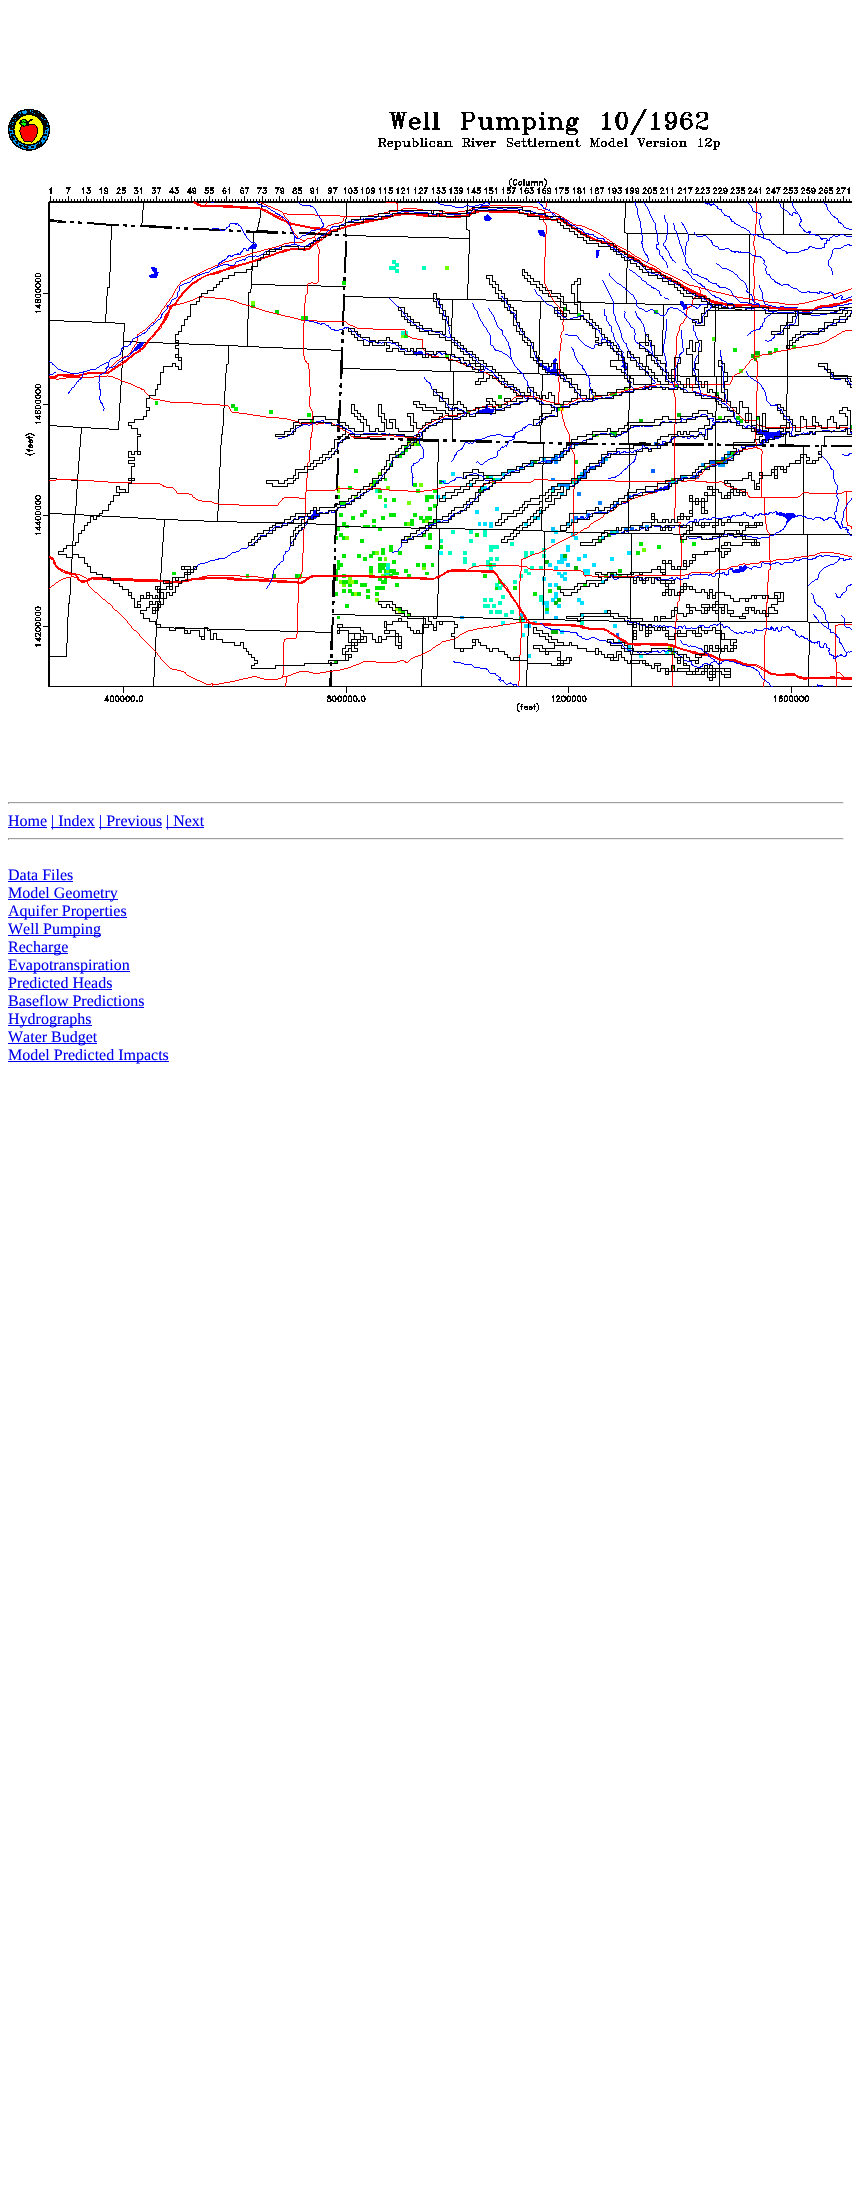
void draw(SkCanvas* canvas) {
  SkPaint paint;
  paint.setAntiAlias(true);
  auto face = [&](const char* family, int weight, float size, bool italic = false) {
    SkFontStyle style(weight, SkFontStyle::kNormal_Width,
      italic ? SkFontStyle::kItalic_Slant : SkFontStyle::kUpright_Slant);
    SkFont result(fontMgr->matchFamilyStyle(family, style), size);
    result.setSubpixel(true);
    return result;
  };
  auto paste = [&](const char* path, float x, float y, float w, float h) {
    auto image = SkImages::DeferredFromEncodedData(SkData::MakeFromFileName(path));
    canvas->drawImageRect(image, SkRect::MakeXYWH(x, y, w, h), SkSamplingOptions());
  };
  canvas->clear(0xffffffff);
  paste("img/1.png", 8, 109, 844, 603);
  {
    const struct { float x, y, w, h; SkColor color; } items[] = {
      {8, 802, 836, 1, 0xff9f9f9f},
      {843, 802, 1, 2, 0xffeeeeee},
      {8, 803, 836, 1, 0xffeeeeee},
      {8, 802, 1, 2, 0xff9f9f9f},
      {8, 827, 39, 1, 0xff0000ee},
      {51, 827, 44, 1, 0xff0000ee},
      {99, 827, 63, 1, 0xff0000ee},
      {166, 827, 38, 1, 0xff0000ee},
      {8, 838, 836, 1, 0xff9f9f9f},
      {843, 838, 1, 2, 0xffeeeeee},
      {8, 839, 836, 1, 0xffeeeeee},
      {8, 838, 1, 2, 0xff9f9f9f},
      {8, 881, 65, 1, 0xff0000ee},
      {8, 899, 110, 1, 0xff0000ee},
      {8, 917, 119, 1, 0xff0000ee},
      {8, 935, 93, 1, 0xff0000ee},
      {8, 953, 60, 1, 0xff0000ee},
      {8, 971, 122, 1, 0xff0000ee},
      {8, 989, 104, 1, 0xff0000ee},
      {8, 1007, 136, 1, 0xff0000ee},
      {8, 1025, 84, 1, 0xff0000ee},
      {8, 1043, 89, 1, 0xff0000ee},
      {8, 1061, 161, 1, 0xff0000ee},
    };
    for (auto [x, y, w, h, color] : items) {
      paint.setColor(color);
      canvas->drawRect(SkRect::MakeXYWH(x, y, w, h), paint);
    }
  }
  auto f0 = face("Liberation Serif", 400, 16);
  {
    const struct { const char* s; float x, y; } items[] = {
      {"Home", 8, 826},
      {"| Index", 51, 826},
      {"| Previous", 99, 826},
      {"| Next", 166, 826},
      {"Data Files", 8, 880},
      {"Model Geometry", 8, 898},
      {"Aquifer Properties", 8, 916},
      {"Well Pumping", 8, 934},
      {"Recharge", 8, 952},
      {"Evapotranspiration", 8, 970},
      {"Predicted Heads", 8, 988},
      {"Baseflow Predictions", 8, 1006},
      {"Hydrographs", 8, 1024},
      {"Water Budget", 8, 1042},
      {"Model Predicted Impacts", 8, 1060},
    };
    for (auto [s, x, y] : items) {
      canvas->drawString(s, x, y, f0, paint);
    }
  }
}
